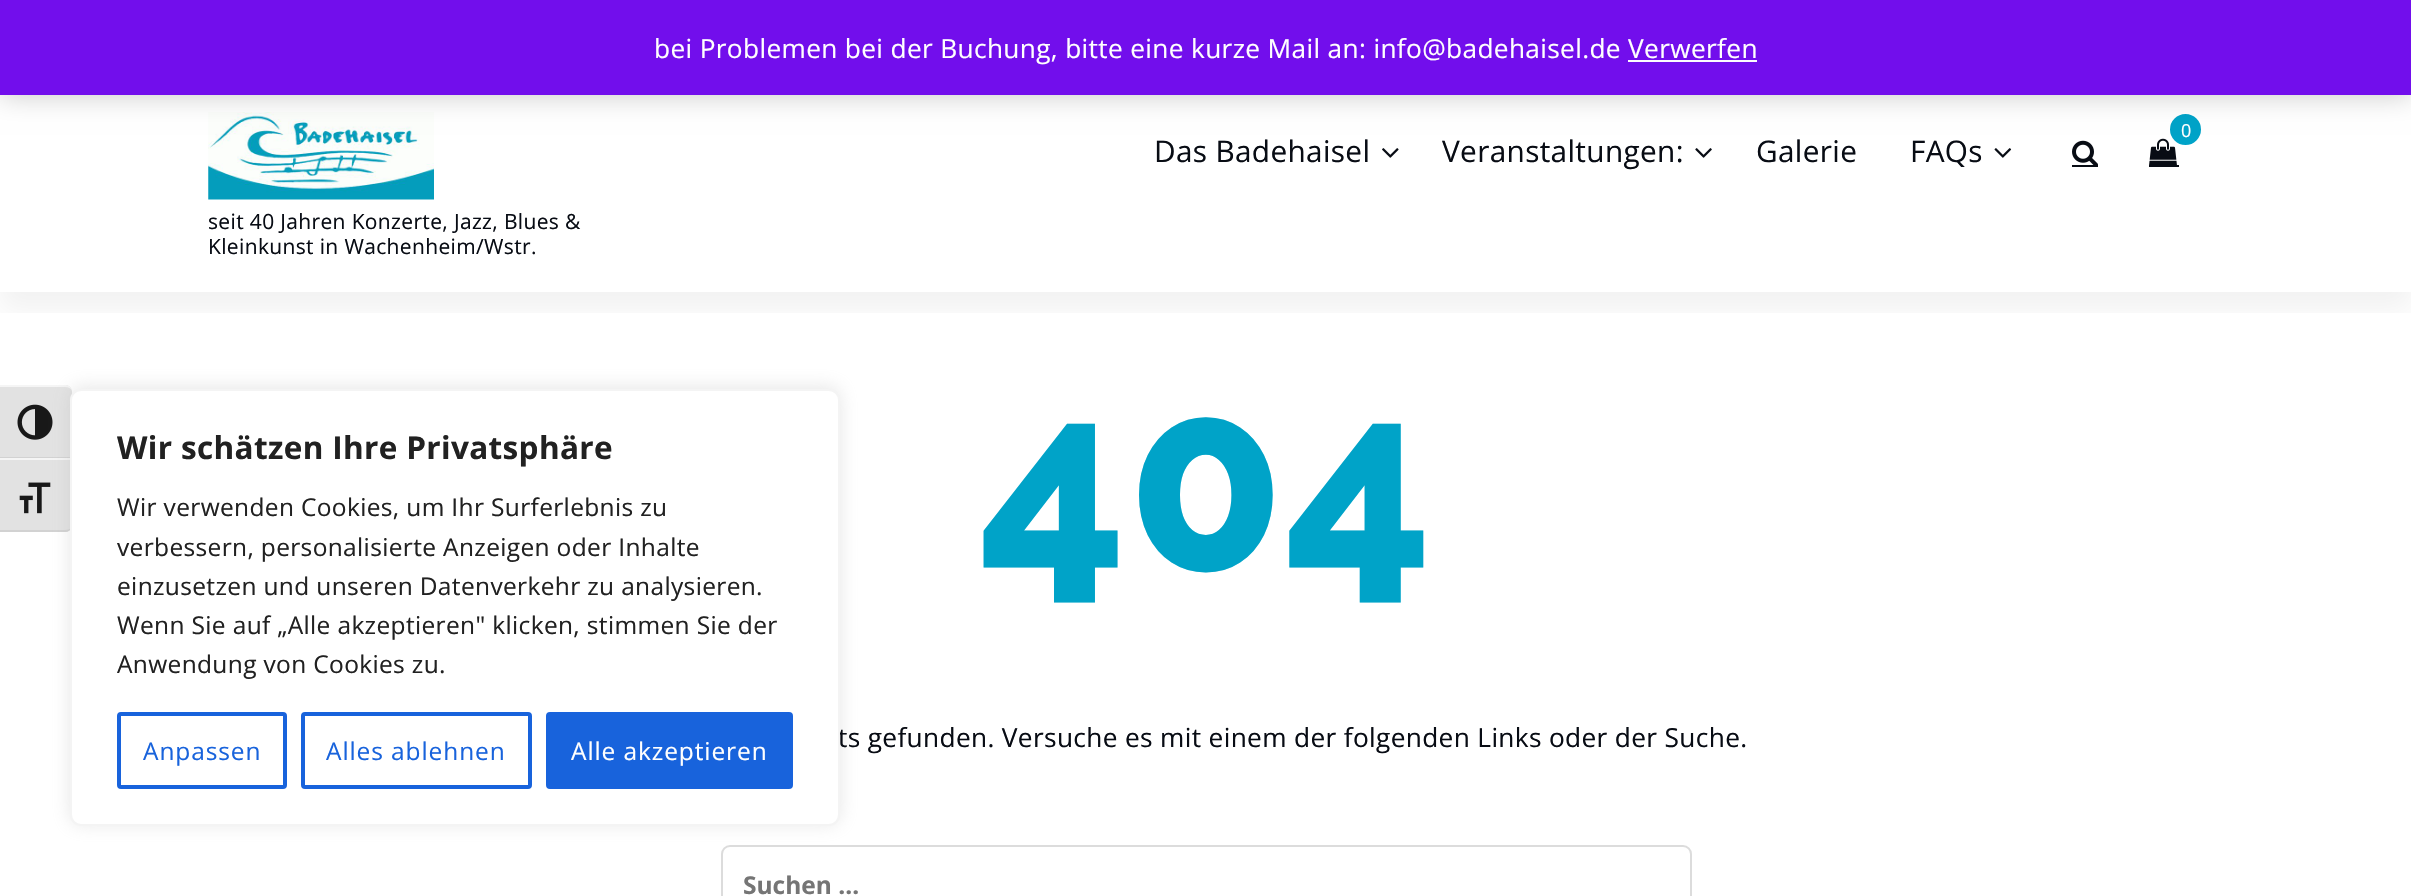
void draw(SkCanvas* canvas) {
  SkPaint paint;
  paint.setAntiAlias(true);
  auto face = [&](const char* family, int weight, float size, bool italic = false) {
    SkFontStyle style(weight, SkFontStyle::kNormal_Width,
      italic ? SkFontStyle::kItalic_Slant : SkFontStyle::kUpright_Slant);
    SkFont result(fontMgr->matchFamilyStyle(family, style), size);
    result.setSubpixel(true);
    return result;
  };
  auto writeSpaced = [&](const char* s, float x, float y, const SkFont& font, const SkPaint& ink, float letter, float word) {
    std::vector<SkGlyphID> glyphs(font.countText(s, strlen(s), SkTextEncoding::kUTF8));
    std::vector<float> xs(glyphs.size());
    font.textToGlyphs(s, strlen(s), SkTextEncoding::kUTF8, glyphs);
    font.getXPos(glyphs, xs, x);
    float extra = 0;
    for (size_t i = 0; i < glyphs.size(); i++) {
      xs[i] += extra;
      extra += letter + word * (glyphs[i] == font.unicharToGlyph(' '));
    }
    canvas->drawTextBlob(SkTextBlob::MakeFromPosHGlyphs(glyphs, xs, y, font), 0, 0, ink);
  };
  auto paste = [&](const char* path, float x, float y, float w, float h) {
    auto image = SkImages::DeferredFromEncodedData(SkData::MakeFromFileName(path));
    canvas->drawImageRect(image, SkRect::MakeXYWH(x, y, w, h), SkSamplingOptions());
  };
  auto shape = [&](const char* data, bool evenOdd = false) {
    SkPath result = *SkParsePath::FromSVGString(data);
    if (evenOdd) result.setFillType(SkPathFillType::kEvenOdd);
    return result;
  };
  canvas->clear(0xffffffff);
  paint.setColor(0xffe2e2e2);
  canvas->drawPath(shape("M0 385H65C69 385 72 388 72 392V459H0Z"), paint);
  paint.setColor(0xfff5f5f5);
  canvas->drawPath(shape("M0 385V387H65C68 387 71 388 72 391C72 387 68 385 65 385Z"), paint);
  paint.setColor(0xffd2d2d2);
  canvas->drawRect(SkRect::MakeXYWH(0, 457, 72, 1), paint);
  paste("img/1.png", 17, 404, 36, 36);
  paint.setColor(0xffe2e2e2);
  canvas->drawPath(shape("M0 459H72V525C72 529 69 532 65 532H0Z"), paint);
  paint.setColor(0xfff5f5f5);
  canvas->drawRect(SkRect::MakeXYWH(0, 458, 72, 2), paint);
  paint.setColor(0xffd2d2d2);
  canvas->drawPath(shape("M0 530V532H65C68 532 71 530 72 527V526C71 529 68 530 65 530Z"), paint);
  paste("img/2.png", 19, 482, 32, 32);
  canvas->save();
  canvas->clipRect(SkRect::MakeXYWH(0, 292, 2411, 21));
  paint.setColor(0x0d000000);
  paint.setMaskFilter(SkMaskFilter::MakeBlur(kNormal_SkBlurStyle, 13));
  canvas->drawRect(SkRect::MakeXYWH(0, 98, 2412, 212), paint);
  paint.setMaskFilter(nullptr);
  canvas->restore();
  paste("img/3.png", 2149, 138, 28, 27);
  paint.setColor(0xff00a3c8);
  canvas->drawCircle(2185.5f, 129.5f, 16.5f, paint);
  paint.setStroke(true);
  paint.setStrokeWidth(2);
  paint.setColor(0xffffffff);
  canvas->drawCircle(2185.5f, 129.5f, 16.5f, paint);
  paste("img/8.png", 208, 112, 226, 88);
  paint.setStroke(false);
  paint.setColor(0x33000000);
  paint.setMaskFilter(SkMaskFilter::MakeBlur(kNormal_SkBlurStyle, 13));
  canvas->drawRect(SkRect::MakeXYWH(0, 2, 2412, 94), paint);
  paint.setMaskFilter(nullptr);
  paint.setColor(0xff720eec);
  canvas->drawRect(SkRect::MakeXYWH(0, 0, 2411, 95), paint);
  paint.setColor(0xff080c14);
  canvas->drawRect(SkRect::MakeXYWH(2149, 165, 30, 2), paint);
  paste("img/4.png", 2072, 140, 26, 25);
  canvas->drawRect(SkRect::MakeXYWH(2072, 165, 26, 2), paint);
  paste("img/5.png", 1382, 148, 17, 10);
  paste("img/6.png", 1695, 148, 17, 10);
  paste("img/7.png", 1994, 148, 18, 10);
  paint.setStroke(true);
  paint.setColor(0xffdcdcdc);
  canvas->drawRoundRect(SkRect::MakeXYWH(722, 846, 969, 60), 8, 8, paint);
  paint.setStroke(false);
  paint.setColor(0x4dacabab);
  paint.setMaskFilter(SkMaskFilter::MakeBlur(kNormal_SkBlurStyle, 9));
  canvas->drawRoundRect(SkRect::MakeXYWH(70, 387, 770, 437), 11, 11, paint);
  paint.setMaskFilter(nullptr);
  auto f0 = face("Open Sans", 400, 26.25f);
  paint.setColor(0xffffffff);
  writeSpaced("bei Problemen bei der Buchung, bitte eine kurze Mail an: info@badehaisel.de Verwerfen", 654, 58, f0, paint, 0.35f, 0);
  paint.setColor(0xfffcfbfe);
  canvas->drawRect(SkRect::MakeXYWH(1628, 60, 129, 2), paint);
  auto f1 = face("Open Sans", 400, 18);
  paint.setColor(0xffffffff);
  writeSpaced("0", 2181, 137, f1, paint, 0.35f, 0);
  auto f2 = face("Open Sans", 400, 29.75f);
  paint.setColor(0xff080c14);
  {
    const struct { const char* s; float x, y; } items[] = {
      {"Das Badehaisel", 1154, 162},
      {"Veranstaltungen:", 1442, 162},
      {"Galerie", 1756, 162},
      {"FAQs", 1910, 162},
    };
    for (auto [s, x, y] : items) {
      writeSpaced(s, x, y, f2, paint, 0.35f, 0);
    }
  }
  auto f3 = face("Open Sans", 400, 21);
  writeSpaced("seit 40 Jahren Konzerte, Jazz, Blues &", 208, 229, f3, paint, 0.35f, 0);
  writeSpaced("Kleinkunst in Wachenheim/Wstr.", 208, 254, f3, paint, 0.35f, 0);
  auto f4 = face("Raleway", 800, 256);
  paint.setColor(0xff00a3c8);
  writeSpaced("404", 979, 570, f4, paint, 0.35f, 0);
  paint.setColor(0xff080c14);
  writeSpaced("ts gefunden. Versuche es mit einem der folgenden Links oder der Suche.", 838, 747, f0, paint, 0.35f, 0);
  auto f5 = face("Open Sans", 700, 24.5f);
  paint.setColor(0xff757575);
  canvas->drawString("Suchen …", 743, 894, f5, paint);
  paint.setColor(0xffffffff);
  canvas->drawRoundRect(SkRect::MakeXYWH(71, 390, 768, 435), 10, 10, paint);
  paint.setStroke(true);
  paint.setColor(0xfff4f4f4);
  canvas->drawRoundRect(SkRect::MakeXYWH(71, 390, 768, 435), 10, 10, paint);
  auto f6 = face("Open Sans", 700, 31.5f);
  paint.setStroke(false);
  paint.setColor(0xff212121);
  writeSpaced("Wir schätzen Ihre Privatsphäre", 117, 459, f6, paint, 0.35f, 0);
  auto f7 = face("Open Sans", 400, 24.5f);
  {
    const struct { const char* s; float x, y; } items[] = {
      {"Wir verwenden Cookies, um Ihr Surferlebnis zu", 117, 516},
      {"verbessern, personalisierte Anzeigen oder Inhalte", 117, 556},
      {"einzusetzen und unseren Datenverkehr zu analysieren.", 117, 595},
      {"Wenn Sie auf „Alle akzeptieren\" klicken, stimmen Sie der", 117, 634},
      {"Anwendung von Cookies zu.", 117, 673},
    };
    for (auto [s, x, y] : items) {
      writeSpaced(s, x, y, f7, paint, 0.35f, 0);
    }
  }
  paint.setStroke(true);
  paint.setStrokeWidth(4);
  paint.setColor(0xff1863dc);
  canvas->drawRoundRect(SkRect::MakeXYWH(119, 714, 166, 73), 2, 2, paint);
  paint.setStroke(false);
  writeSpaced("Anpassen", 143, 760, f7, paint, 0.9f, 0);
  paint.setStroke(true);
  canvas->drawRoundRect(SkRect::MakeXYWH(303, 714, 227, 73), 2, 2, paint);
  paint.setStroke(false);
  writeSpaced("Alles ablehnen", 326, 760, f7, paint, 0.9f, 0);
  canvas->drawRoundRect(SkRect::MakeXYWH(548, 714, 243, 73), 2, 2, paint);
  paint.setStroke(true);
  canvas->drawRoundRect(SkRect::MakeXYWH(548, 714, 243, 73), 2, 2, paint);
  paint.setStroke(false);
  paint.setColor(0xffffffff);
  writeSpaced("Alle akzeptieren", 571, 760, f7, paint, 0.9f, 0);
}
